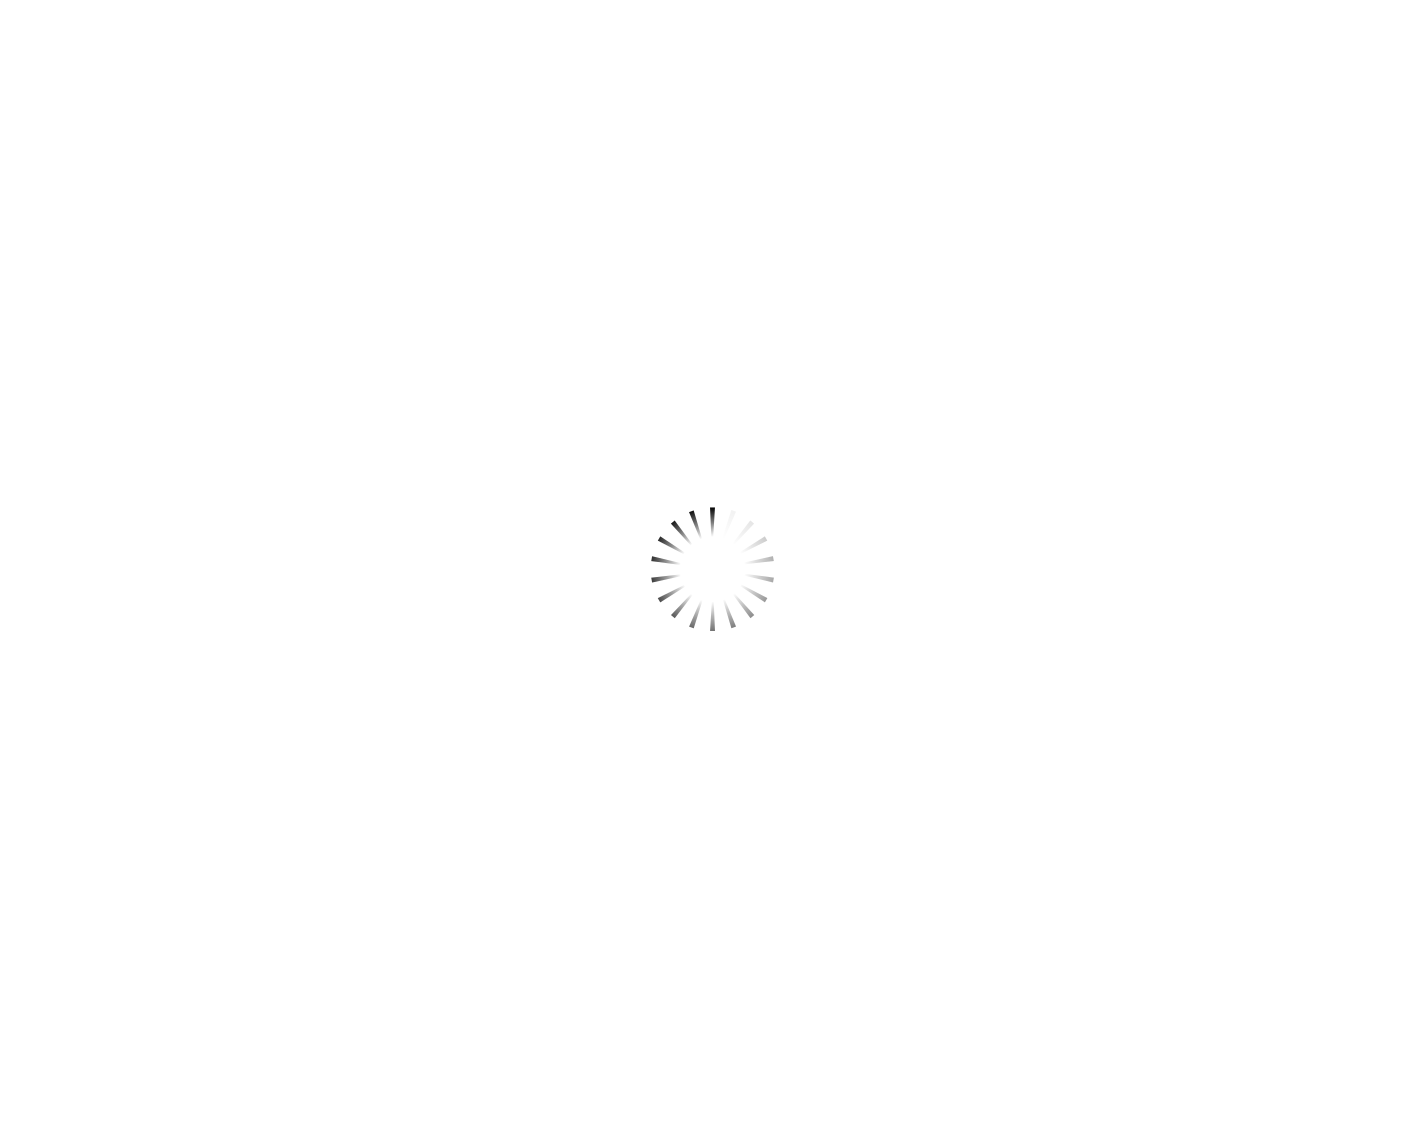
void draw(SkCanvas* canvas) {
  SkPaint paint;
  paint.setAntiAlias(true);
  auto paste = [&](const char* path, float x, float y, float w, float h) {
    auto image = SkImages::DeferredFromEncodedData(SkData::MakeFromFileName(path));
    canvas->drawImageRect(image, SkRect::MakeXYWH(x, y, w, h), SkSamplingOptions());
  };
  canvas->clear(0xffffffff);
  paste("img/1.png", 651, 507, 123, 124);
}
